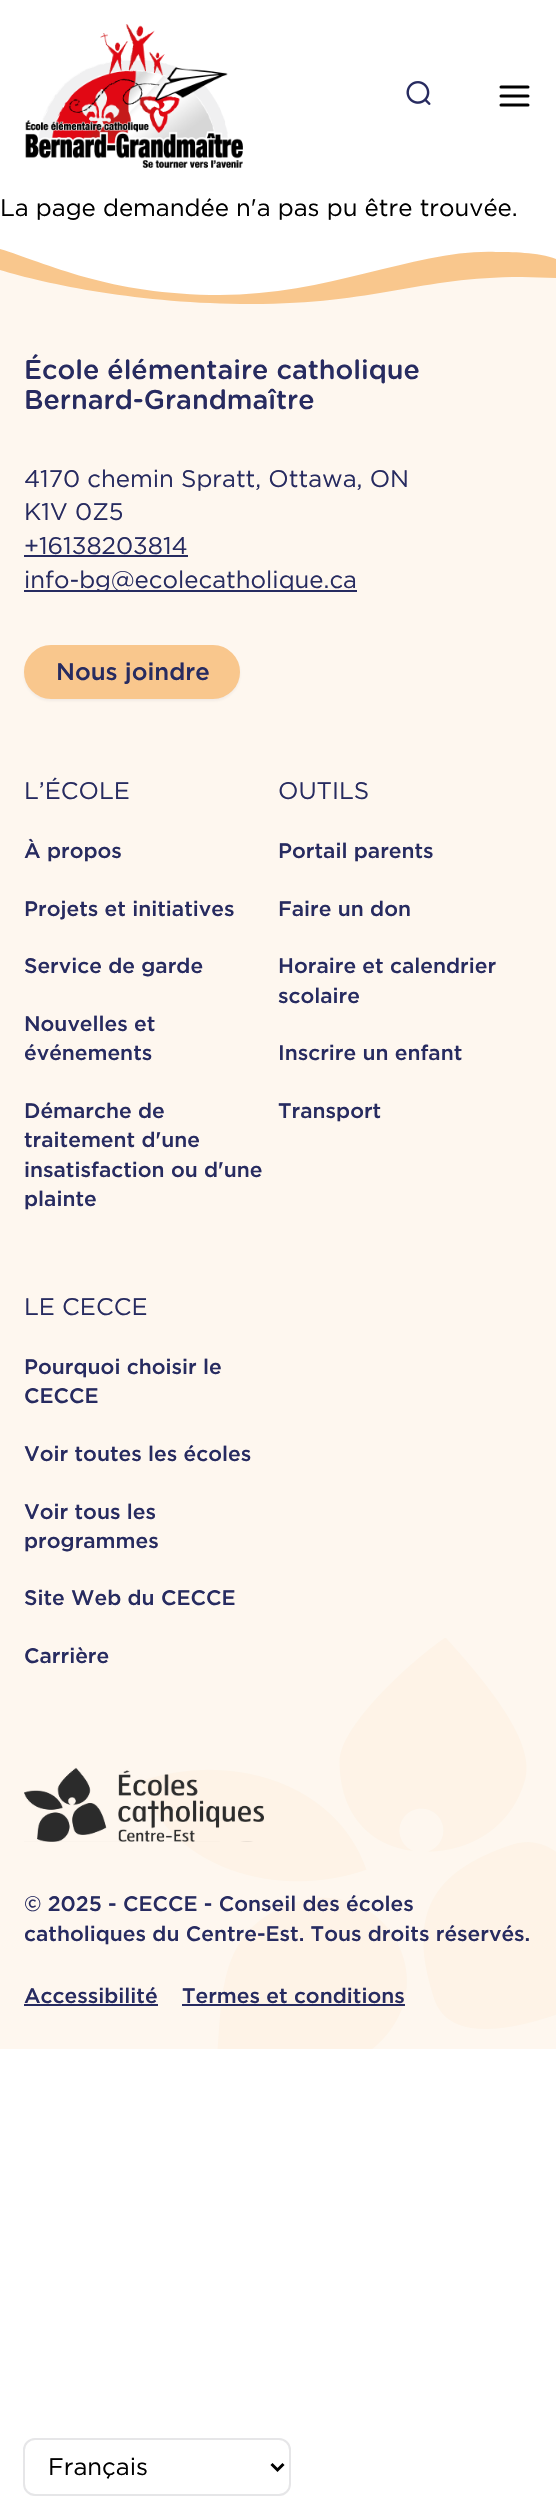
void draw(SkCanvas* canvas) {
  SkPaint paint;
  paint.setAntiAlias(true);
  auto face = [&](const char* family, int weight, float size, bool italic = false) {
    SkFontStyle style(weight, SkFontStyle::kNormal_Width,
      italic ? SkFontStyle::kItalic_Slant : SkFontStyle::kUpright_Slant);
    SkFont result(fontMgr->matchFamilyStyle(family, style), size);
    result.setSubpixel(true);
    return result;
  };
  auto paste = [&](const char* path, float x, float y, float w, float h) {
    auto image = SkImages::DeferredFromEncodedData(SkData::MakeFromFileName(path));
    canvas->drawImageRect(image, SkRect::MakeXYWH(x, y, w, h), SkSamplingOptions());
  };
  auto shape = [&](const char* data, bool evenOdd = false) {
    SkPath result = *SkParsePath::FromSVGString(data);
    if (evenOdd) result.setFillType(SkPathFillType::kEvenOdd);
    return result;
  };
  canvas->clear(0xffffffff);
  paste("img/1.png", 25, 24, 218, 144);
  paste("img/2.png", 406, 81, 25, 24);
  paint.setStroke(true);
  paint.setStrokeWidth(3);
  paint.setStrokeCap(SkPaint::kRound_Cap);
  paint.setStrokeJoin(SkPaint::kRound_Join);
  paint.setColor(0xff000000);
  canvas->drawPath(shape("M501 96H528M501 87H528M501 105H528"), paint);
  paint.setStroke(false);
  paint.setColor(0xfff9c78d);
  canvas->drawPath(shape("M496 252C417 249 331 295 220 295C109 295 46 263 0 249V307H556V259C539 252 509 252 496 252Z"), paint);
  paint.setColor(0xfffef7ef);
  canvas->drawPath(shape("M522 277C417 277 378 304 251 304C140 304 46 284 0 270V310H556V278Z"), paint);
  {
    const struct { float x, y, w, h; SkColor color; } items[] = {
      {0, 310, 556, 1739, 0xfffef7ef},
      {24, 555, 164, 2, 0xff272b60},
      {24, 590, 333, 2, 0xff272b60},
    };
    for (auto [x, y, w, h, color] : items) {
      paint.setColor(color);
      canvas->drawRect(SkRect::MakeXYWH(x, y, w, h), paint);
    }
  }
  paint.setColor(0x0d101828);
  paint.setMaskFilter(SkMaskFilter::MakeBlur(kNormal_SkBlurStyle, 1.5f));
  canvas->drawRoundRect(SkRect::MakeXYWH(24, 647, 216, 54), 27, 27, paint);
  paint.setMaskFilter(nullptr);
  paint.setColor(0xfff9c78d);
  canvas->drawRoundRect(SkRect::MakeXYWH(25, 646, 214, 52), 26, 26, paint);
  paint.setStroke(true);
  paint.setStrokeWidth(2);
  paint.setStrokeCap(SkPaint::kButt_Cap);
  paint.setStrokeJoin(SkPaint::kMiter_Join);
  canvas->drawRoundRect(SkRect::MakeXYWH(25, 646, 214, 52), 26, 26, paint);
  paste("img/4.png", 141, 1638, 415, 411);
  paste("img/3.png", 24, 1767, 240, 75);
  paint.setStroke(false);
  paint.setColor(0xff272b60);
  canvas->drawRect(SkRect::MakeXYWH(24, 2004, 134, 2), paint);
  canvas->drawRect(SkRect::MakeXYWH(182, 2004, 223, 2), paint);
  paint.setStroke(true);
  paint.setColor(0xffe6e6e8);
  canvas->drawRoundRect(SkRect::MakeXYWH(24, 2439, 266, 56), 11, 11, paint);
  paint.setStrokeWidth(3);
  paint.setColor(0xff000000);
  canvas->drawPath(shape("M271.5 2464L277.5 2470L283.5 2464"), paint);
  auto f0 = face("Gotham", 400, 24);
  paint.setStroke(false);
  canvas->drawString("La page demandée n'a pas pu être trouvée.", 0, 216, f0, paint);
  auto f1 = face("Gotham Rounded", 500, 27);
  paint.setColor(0xff272b60);
  canvas->drawString("École élémentaire catholique", 24, 379, f1, paint);
  canvas->drawString("Bernard-Grandmaître", 24, 409, f1, paint);
  {
    const struct { const char* s; float x, y; } items[] = {
      {"4170 chemin Spratt, Ottawa, ON", 24, 487},
      {"K1V 0Z5", 24, 520},
      {"+16138203814", 24, 554},
      {"info-bg@ecolecatholique.ca", 24, 588},
    };
    for (auto [s, x, y] : items) {
      canvas->drawString(s, x, y, f0, paint);
    }
  }
  auto f2 = face("Gotham", 500, 24);
  canvas->drawString("Nous joindre", 56, 680, f2, paint);
  canvas->drawString("L’ÉCOLE", 24, 799, f0, paint);
  auto f3 = face("Gotham", 500, 21);
  {
    const struct { const char* s; float x, y; } items[] = {
      {"À propos", 24, 858},
      {"Projets et initiatives", 24, 916},
      {"Service de garde", 24, 973},
      {"Nouvelles et", 24, 1031},
      {"événements", 24, 1060},
      {"Démarche de", 24, 1118},
      {"traitement d'une", 24, 1147},
      {"insatisfaction ou d'une", 24, 1177},
      {"plainte", 24, 1206},
    };
    for (auto [s, x, y] : items) {
      canvas->drawString(s, x, y, f3, paint);
    }
  }
  canvas->drawString("OUTILS", 278, 799, f0, paint);
  {
    const struct { const char* s; float x, y; } items[] = {
      {"Portail parents", 278, 858},
      {"Faire un don", 278, 916},
      {"Horaire et calendrier", 278, 973},
      {"scolaire", 278, 1003},
      {"Inscrire un enfant", 278, 1060},
      {"Transport", 278, 1118},
    };
    for (auto [s, x, y] : items) {
      canvas->drawString(s, x, y, f3, paint);
    }
  }
  canvas->drawString("LE CECCE", 24, 1315, f0, paint);
  {
    const struct { const char* s; float x, y; } items[] = {
      {"Pourquoi choisir le", 24, 1374},
      {"CECCE", 24, 1403},
      {"Voir toutes les écoles", 24, 1461},
      {"Voir tous les", 24, 1519},
      {"programmes", 24, 1548},
      {"Site Web du CECCE", 24, 1605},
      {"Carrière", 24, 1663},
      {"© 2025 - CECCE - Conseil des écoles", 24, 1911},
      {"catholiques du Centre-Est. Tous droits réservés.", 24, 1941},
      {"Accessibilité", 24, 2003},
      {"Termes et conditions", 182, 2003},
    };
    for (auto [s, x, y] : items) {
      canvas->drawString(s, x, y, f3, paint);
    }
  }
  paint.setColor(0xff000000);
  canvas->drawString("Français", 48, 2475, f0, paint);
}
